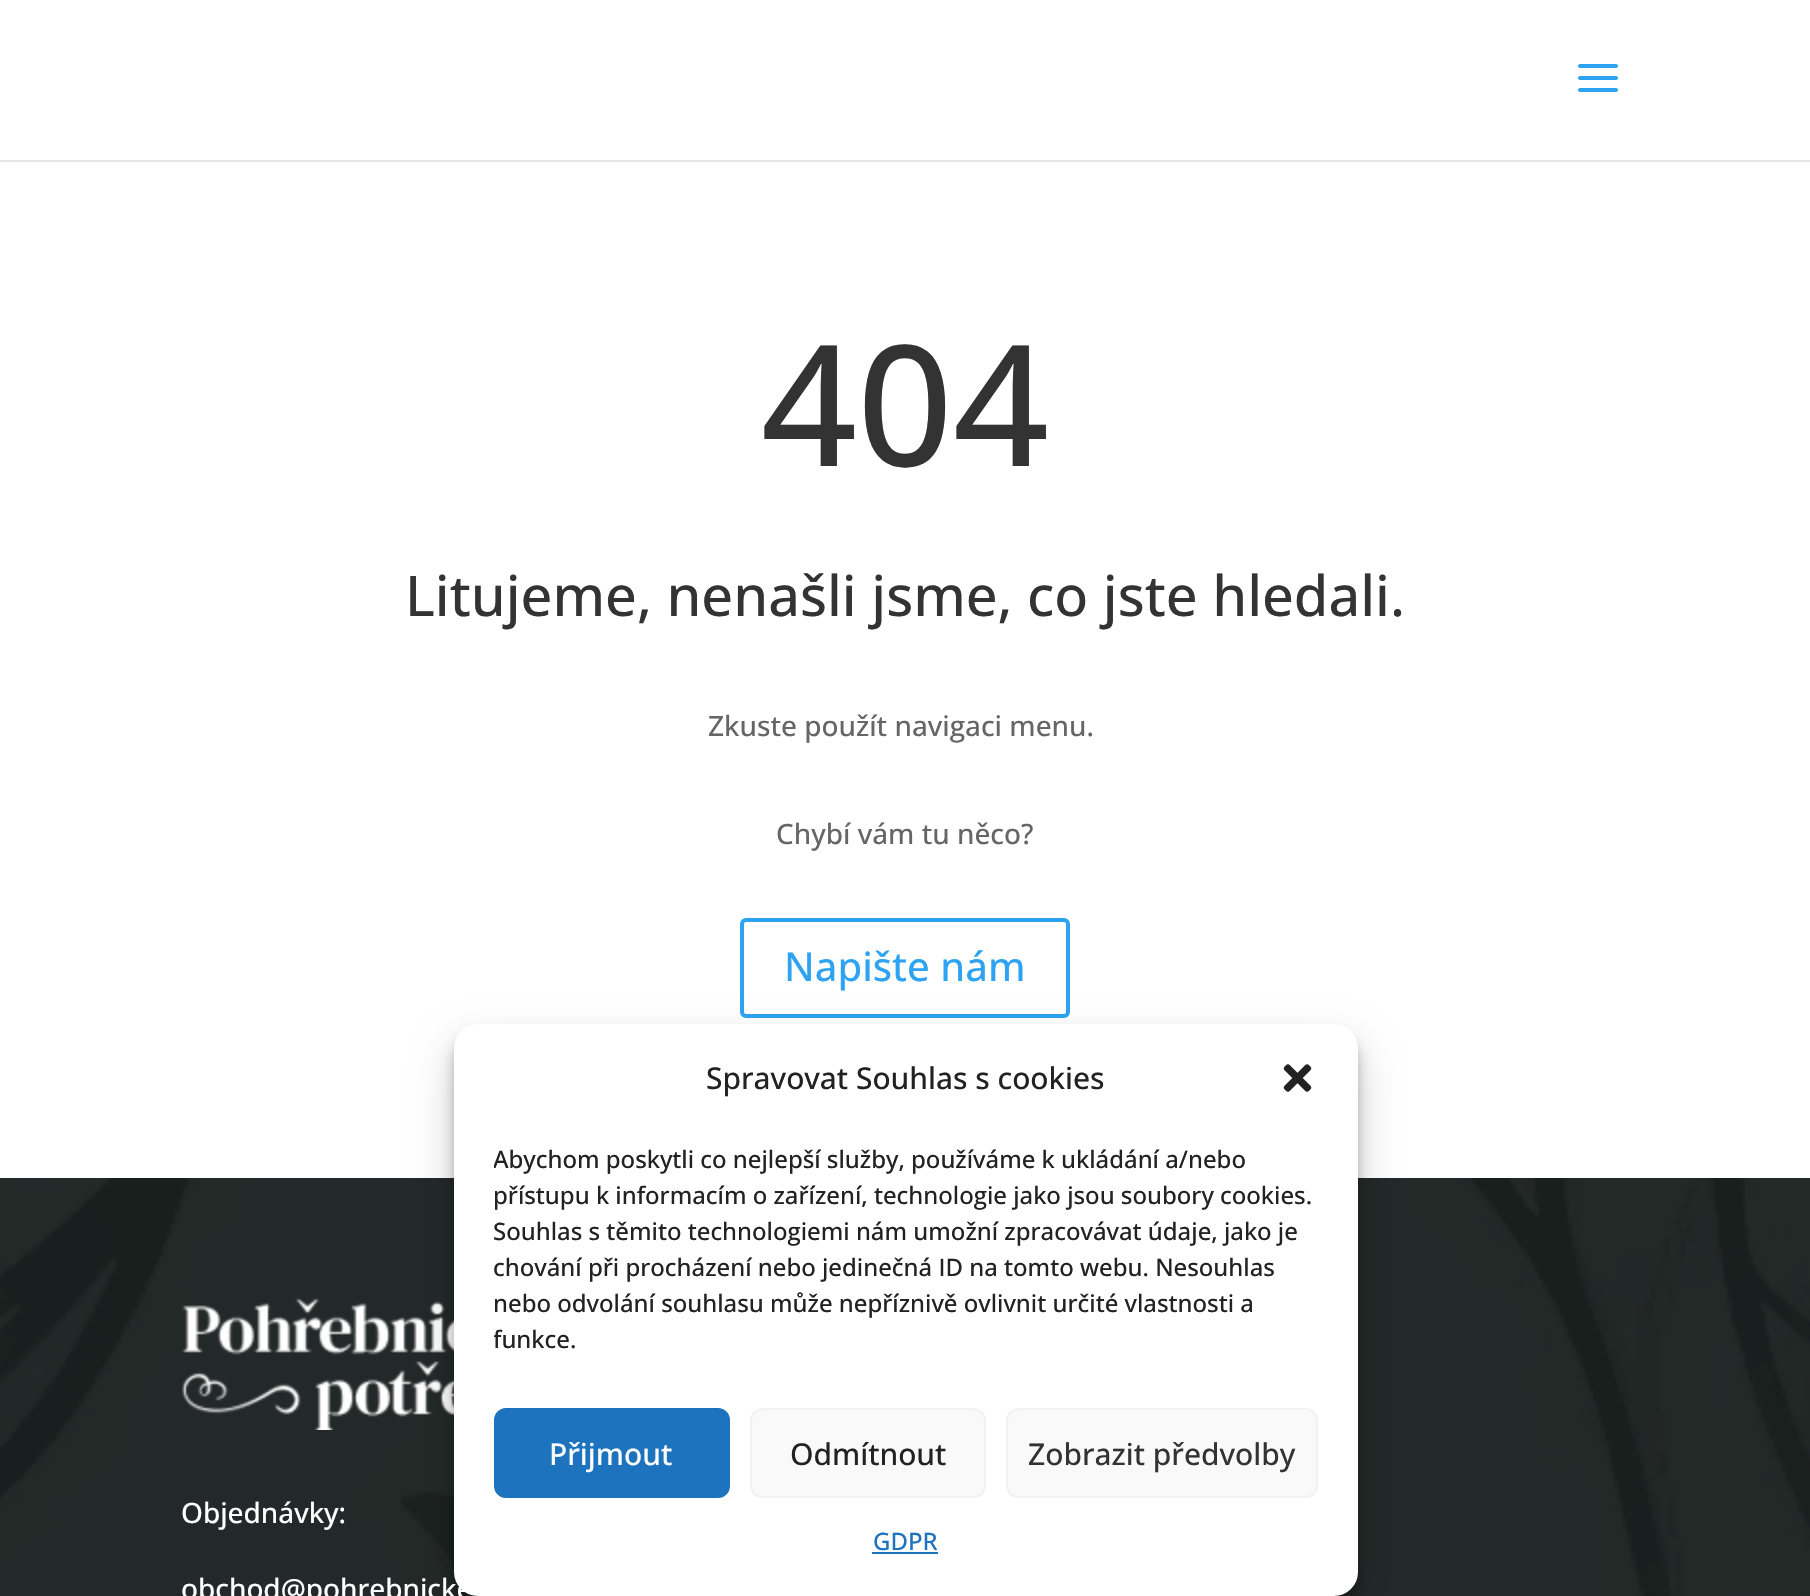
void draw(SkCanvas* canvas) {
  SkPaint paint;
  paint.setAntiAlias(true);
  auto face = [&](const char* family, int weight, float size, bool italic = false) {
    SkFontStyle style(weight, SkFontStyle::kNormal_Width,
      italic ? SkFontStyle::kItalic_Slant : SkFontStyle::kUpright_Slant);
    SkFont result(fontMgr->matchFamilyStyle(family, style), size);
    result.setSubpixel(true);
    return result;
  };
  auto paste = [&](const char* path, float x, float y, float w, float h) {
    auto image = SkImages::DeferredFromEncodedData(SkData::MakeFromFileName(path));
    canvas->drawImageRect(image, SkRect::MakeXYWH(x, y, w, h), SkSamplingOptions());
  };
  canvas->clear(0xffffffff);
  paint.setColor(0xffe6e6e6);
  canvas->drawRect(SkRect::MakeXYWH(0, 160, 1810, 2), paint);
  paste("img/1.png", 1578, 64, 40, 28);
  paint.setStroke(true);
  paint.setStrokeWidth(4);
  paint.setColor(0xff2ea3f2);
  canvas->drawRoundRect(SkRect::MakeXYWH(742, 920, 326, 96), 4, 4, paint);
  paste("img/2.png", 0, 1178, 1810, 418);
  paste("img/3.png", 182, 1298, 272, 132);
  paint.setStroke(false);
  paint.setColor(0x3b000000);
  paint.setMaskFilter(SkMaskFilter::MakeBlur(kNormal_SkBlurStyle, 6));
  canvas->drawRoundRect(SkRect::MakeXYWH(454, 1036, 904, 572), 24, 24, paint);
  paint.setMaskFilter(nullptr);
  paint.setColor(0x30000000);
  paint.setMaskFilter(SkMaskFilter::MakeBlur(kNormal_SkBlurStyle, 20));
  canvas->drawRoundRect(SkRect::MakeXYWH(454, 1044, 904, 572), 24, 24, paint);
  paint.setMaskFilter(nullptr);
  paint.setColor(0xffffffff);
  canvas->drawRoundRect(SkRect::MakeXYWH(454, 1024, 904, 572), 24, 24, paint);
  paste("img/4.png", 1283, 1064, 29, 28);
  paint.setColor(0xff1e73be);
  canvas->drawRoundRect(SkRect::MakeXYWH(495, 1409, 234, 88), 11, 11, paint);
  paint.setStroke(true);
  paint.setStrokeWidth(2);
  canvas->drawRoundRect(SkRect::MakeXYWH(495, 1409, 234, 88), 11, 11, paint);
  paint.setStroke(false);
  paint.setColor(0xfff9f9f9);
  canvas->drawRoundRect(SkRect::MakeXYWH(751, 1409, 234, 88), 11, 11, paint);
  paint.setStroke(true);
  paint.setColor(0xfff2f2f2);
  canvas->drawRoundRect(SkRect::MakeXYWH(751, 1409, 234, 88), 11, 11, paint);
  paint.setStroke(false);
  paint.setColor(0xfff9f9f9);
  canvas->drawRoundRect(SkRect::MakeXYWH(1007, 1409, 310, 88), 11, 11, paint);
  paint.setStroke(true);
  paint.setColor(0xfff2f2f2);
  canvas->drawRoundRect(SkRect::MakeXYWH(1007, 1409, 310, 88), 11, 11, paint);
  paint.setStroke(false);
  paint.setColor(0xff1e73be);
  canvas->drawRect(SkRect::MakeXYWH(872, 1552, 66, 2), paint);
  auto f0 = face("Open Sans", 500, 168);
  paint.setColor(0xff333333);
  canvas->drawString("404", 761, 466, f0, paint);
  auto f1 = face("Open Sans", 500, 56);
  canvas->drawString("Litujeme, nenašli jsme, co jste hledali.", 405, 616, f1, paint);
  auto f2 = face("Open Sans", 500, 28);
  paint.setColor(0xff666666);
  canvas->drawString("Zkuste použít navigaci menu.", 708, 736, f2, paint);
  canvas->drawString("Chybí vám tu něco?", 776, 844, f2, paint);
  auto f3 = face("Open Sans", 500, 40);
  paint.setColor(0xff2ea3f2);
  canvas->drawString("Napište nám", 784, 981, f3, paint);
  paint.setColor(0xffffffff);
  canvas->drawString("Objednávky:", 181, 1523, f2, paint);
  canvas->drawString("obchod@pohrebnicke", 181, 1599, f2, paint);
  auto f4 = face("Open Sans", 500, 30);
  paint.setColor(0xff222222);
  canvas->drawString("Spravovat Souhlas s cookies", 706, 1089, f4, paint);
  canvas->save();
  canvas->clipRect(SkRect::MakeXYWH(494, 1142, 824, 226));
  auto f5 = face("Open Sans", 500, 24);
  canvas->drawString("Abychom poskytli co nejlepší služby, používáme k ukládání a/nebo", 493, 1168, f5, paint);
  canvas->restore();
  canvas->drawString("přístupu k informacím o zařízení, technologie jako jsou soubory cookies.", 493, 1204, f5, paint);
  canvas->save();
  canvas->clipRect(SkRect::MakeXYWH(494, 1142, 824, 226));
  canvas->drawString("Souhlas s těmito technologiemi nám umožní zpracovávat údaje, jako je", 493, 1240, f5, paint);
  canvas->drawString("chování při procházení nebo jedinečná ID na tomto webu. Nesouhlas", 493, 1276, f5, paint);
  canvas->restore();
  canvas->drawString("nebo odvolání souhlasu může nepříznivě ovlivnit určité vlastnosti a", 493, 1312, f5, paint);
  canvas->save();
  canvas->clipRect(SkRect::MakeXYWH(494, 1142, 824, 226));
  canvas->drawString("funkce.", 493, 1348, f5, paint);
  canvas->restore();
  paint.setColor(0xffffffff);
  canvas->drawString("Přijmout", 549, 1465, f4, paint);
  paint.setColor(0xff222222);
  canvas->drawString("Odmítnout", 790, 1465, f4, paint);
  paint.setColor(0xff333333);
  canvas->drawString("Zobrazit předvolby", 1028, 1465, f4, paint);
  paint.setColor(0xff1e73be);
  canvas->drawString("GDPR", 873, 1550, f5, paint);
}
